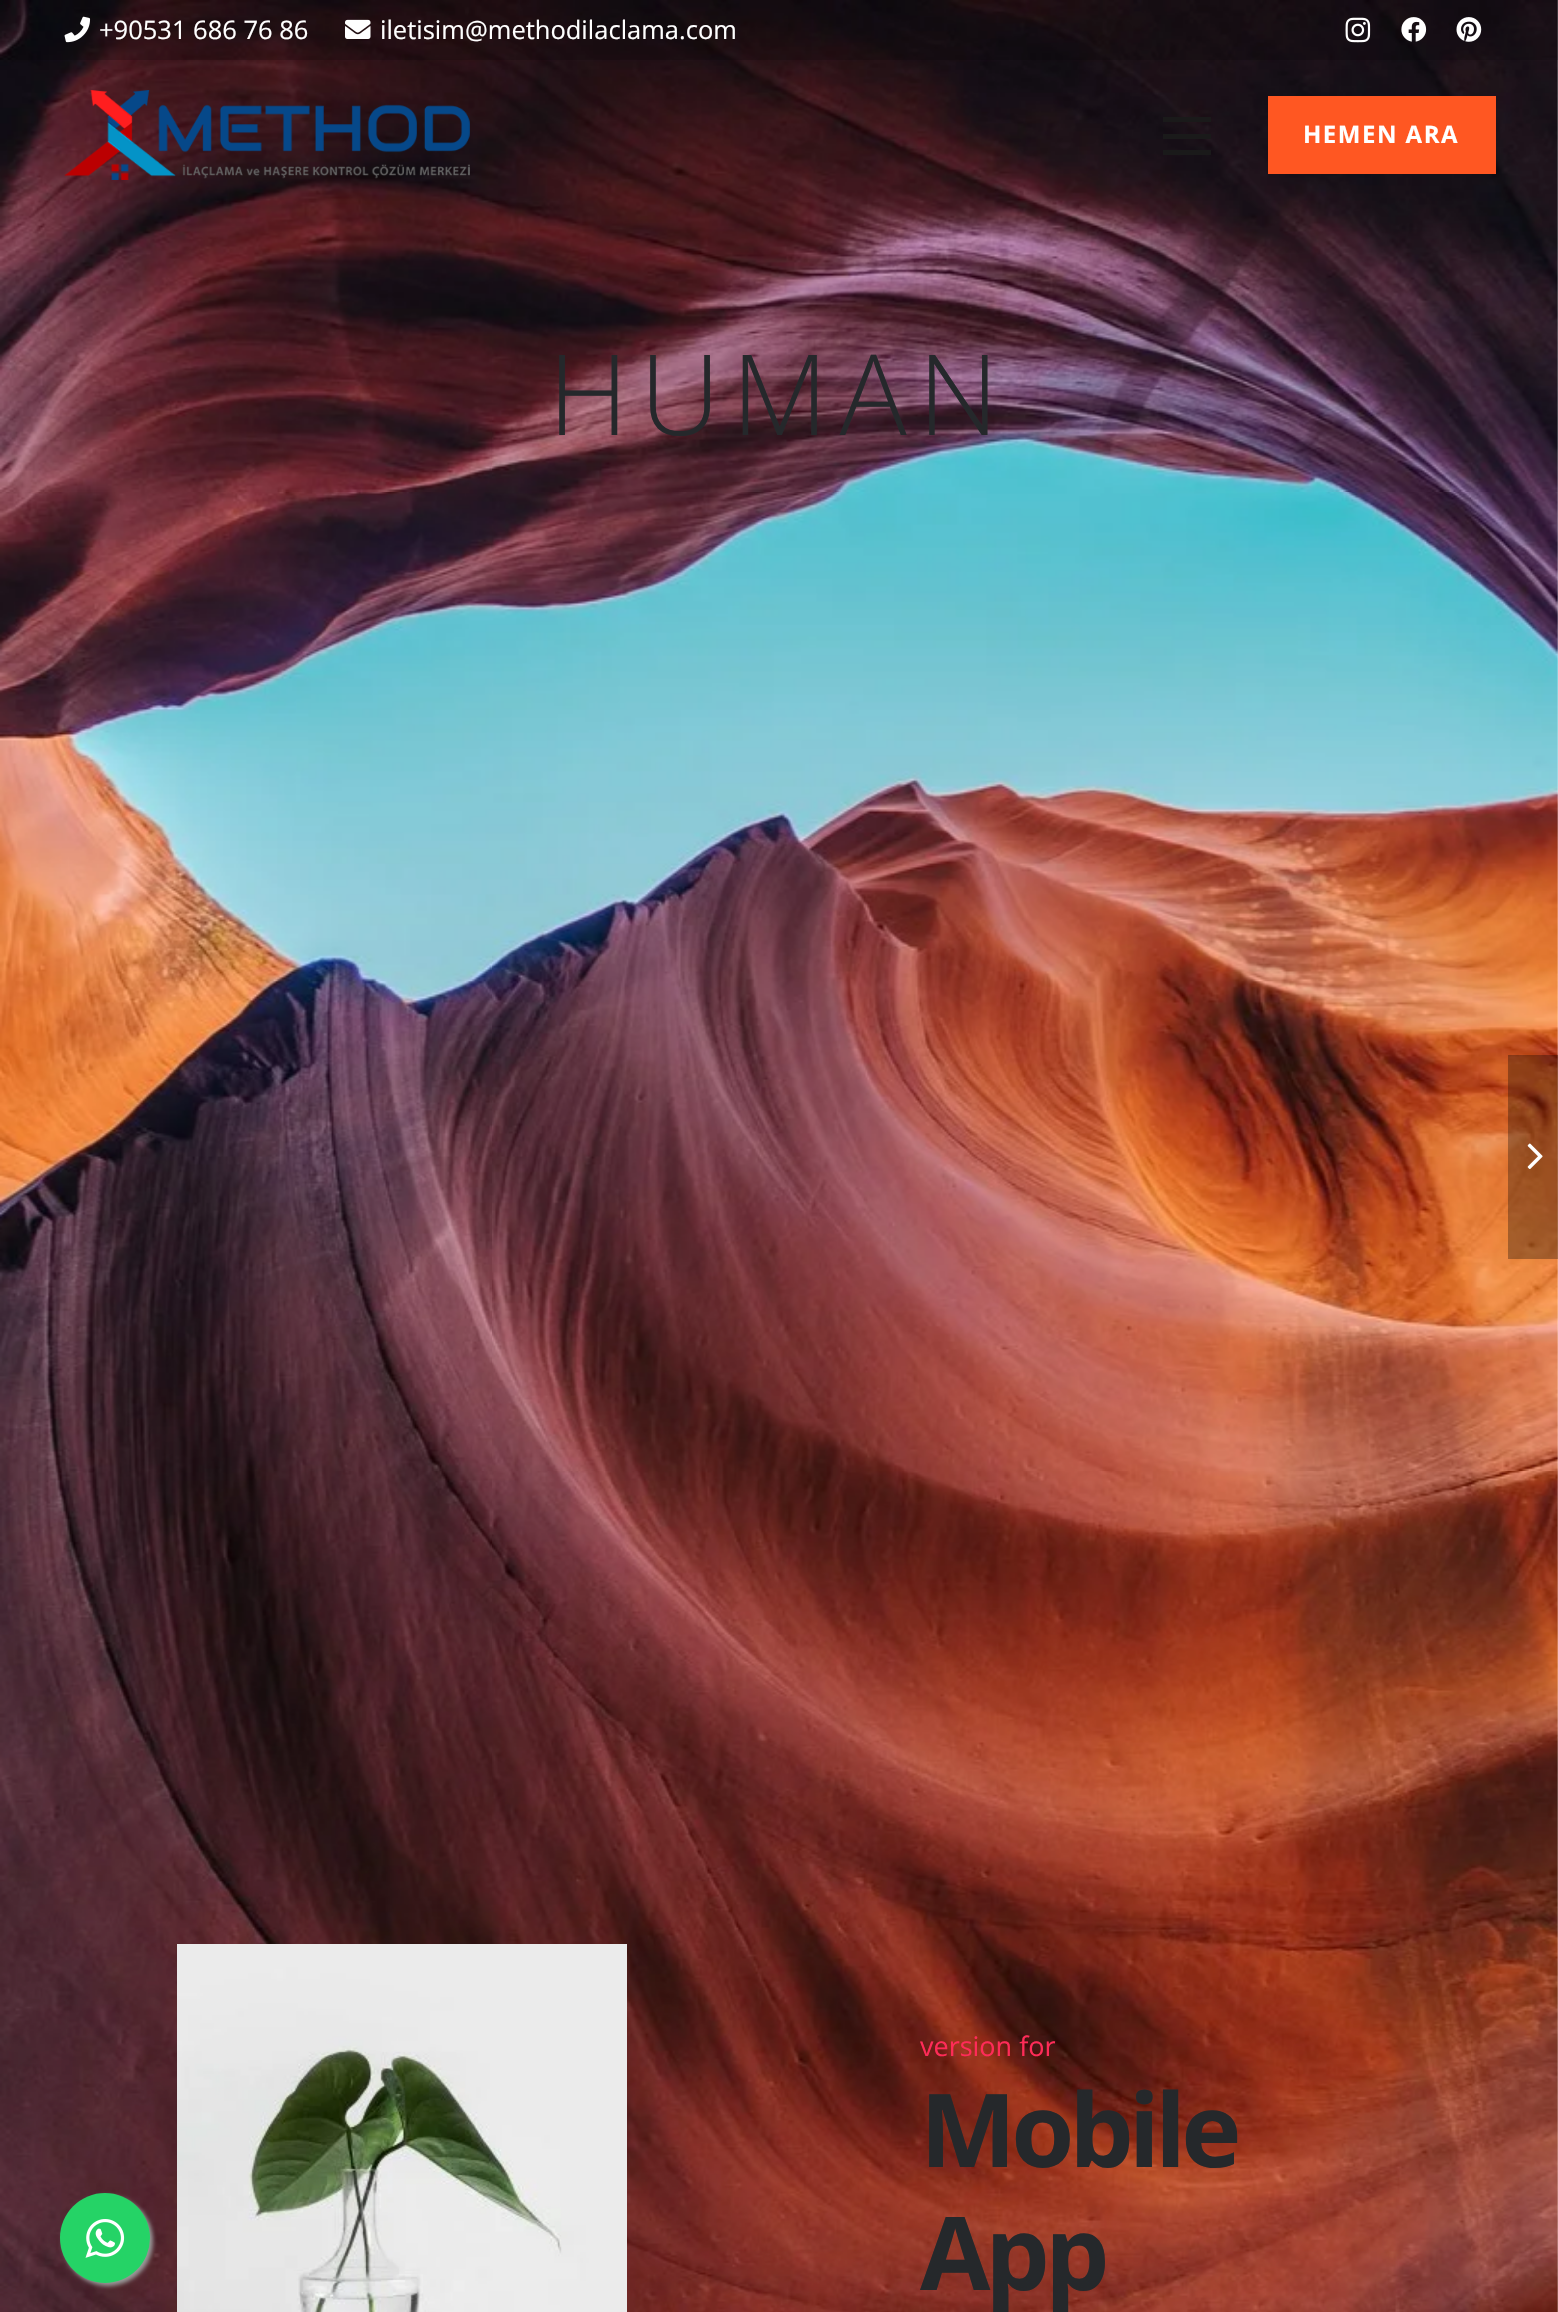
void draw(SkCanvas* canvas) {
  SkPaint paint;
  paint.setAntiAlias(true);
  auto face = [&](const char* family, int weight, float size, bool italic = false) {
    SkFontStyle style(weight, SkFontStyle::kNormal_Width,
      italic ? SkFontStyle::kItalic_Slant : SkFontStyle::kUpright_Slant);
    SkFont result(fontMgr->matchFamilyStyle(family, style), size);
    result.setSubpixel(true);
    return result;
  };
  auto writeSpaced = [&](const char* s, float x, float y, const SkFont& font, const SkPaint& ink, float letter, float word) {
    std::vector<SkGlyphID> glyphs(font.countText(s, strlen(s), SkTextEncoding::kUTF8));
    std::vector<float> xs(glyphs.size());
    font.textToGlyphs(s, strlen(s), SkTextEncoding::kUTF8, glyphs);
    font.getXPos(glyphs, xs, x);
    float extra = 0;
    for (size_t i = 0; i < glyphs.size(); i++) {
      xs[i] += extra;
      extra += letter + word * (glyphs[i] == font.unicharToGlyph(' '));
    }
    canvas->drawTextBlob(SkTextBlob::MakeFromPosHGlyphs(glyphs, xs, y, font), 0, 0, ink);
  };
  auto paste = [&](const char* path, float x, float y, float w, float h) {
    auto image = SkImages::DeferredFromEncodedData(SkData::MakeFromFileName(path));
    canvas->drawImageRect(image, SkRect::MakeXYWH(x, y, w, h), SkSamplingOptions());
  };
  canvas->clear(0xffffffff);
  paste("img/7.png", 0, 0, 1558, 576);
  paint.setColor(0x33000000);
  canvas->drawRect(SkRect::MakeXYWH(0, 0, 1558, 60), paint);
  paste("img/1.png", 64, 16, 27, 27);
  paste("img/2.png", 345, 19, 26, 20);
  paste("img/3.png", 1345, 17, 26, 26);
  paste("img/4.png", 1401, 17, 26, 25);
  paste("img/5.png", 1456, 17, 26, 25);
  paste("img/6.png", 64, 90, 406, 90);
  {
    const struct { float x, y, w, h; SkColor color; } items[] = {
      {1163, 134, 48, 5, 0xff1a1a1a},
      {1163, 117, 48, 5, 0xff1a1a1a},
      {1163, 150, 48, 5, 0xff1a1a1a},
      {1268, 96, 228, 78, 0xffff5722},
    };
    for (auto [x, y, w, h, color] : items) {
      paint.setColor(color);
      canvas->drawRect(SkRect::MakeXYWH(x, y, w, h), paint);
    }
  }
  paste("img/8.png", 0, 576, 1558, 1062);
  paint.setColor(0x4d000000);
  canvas->drawRect(SkRect::MakeXYWH(1508, 1055, 50, 204), paint);
  paste("img/9.png", 1527, 1143, 16, 26);
  paste("img/10.png", 0, 1638, 1558, 674);
  paste("img/11.png", 177, 1944, 450, 368);
  paint.setColor(0xff999999);
  paint.setMaskFilter(SkMaskFilter::MakeBlur(kNormal_SkBlurStyle, 2));
  canvas->drawRoundRect(SkRect::MakeXYWH(63, 2196, 90, 90), 45, 45, paint);
  paint.setMaskFilter(nullptr);
  paint.setColor(0xff25d366);
  canvas->drawCircle(105, 2238, 45, paint);
  paste("img/12.png", 85, 2219, 40, 39);
  auto f0 = face("Open Sans", 400, 25.5f);
  paint.setColor(0xffffffff);
  canvas->drawString("+90531 686 76 86", 99, 39, f0, paint);
  canvas->drawString("iletisim@methodilaclama.com", 380, 39, f0, paint);
  auto f1 = face("Open Sans", 700, 24);
  writeSpaced("HEMEN ARA", 1303, 143, f1, paint, 1.5f, 0);
  auto f2 = face("Open Sans", 300, 112);
  paint.setColor(0xff25282b);
  writeSpaced("HUMAN", 548, 435, f2, paint, 11.25f, 0);
  auto f3 = face("Open Sans", 400, 27);
  paint.setColor(0xffff2b58);
  canvas->drawString("version for", 920, 2056, f3, paint);
  auto f4 = face("Open Sans", 700, 102);
  paint.setColor(0xff25282b);
  writeSpaced("Mobile", 920, 2167, f4, paint, -5, 0);
  writeSpaced("App", 920, 2290, f4, paint, -5, 0);
}
